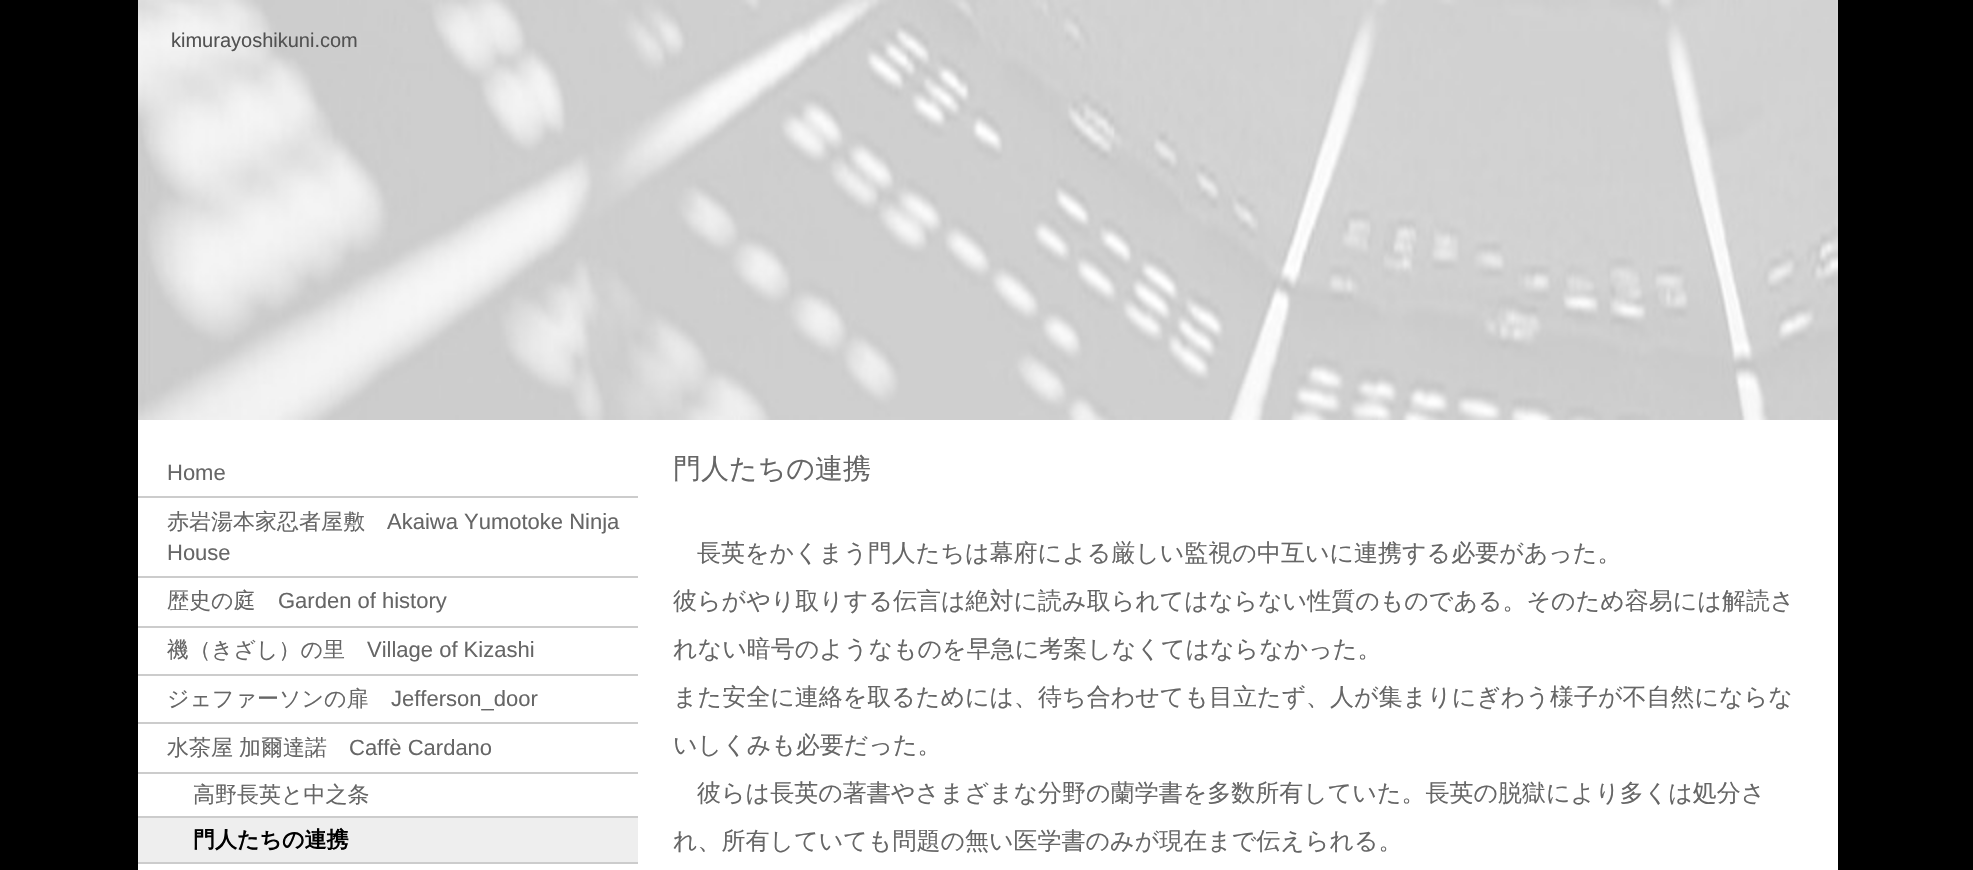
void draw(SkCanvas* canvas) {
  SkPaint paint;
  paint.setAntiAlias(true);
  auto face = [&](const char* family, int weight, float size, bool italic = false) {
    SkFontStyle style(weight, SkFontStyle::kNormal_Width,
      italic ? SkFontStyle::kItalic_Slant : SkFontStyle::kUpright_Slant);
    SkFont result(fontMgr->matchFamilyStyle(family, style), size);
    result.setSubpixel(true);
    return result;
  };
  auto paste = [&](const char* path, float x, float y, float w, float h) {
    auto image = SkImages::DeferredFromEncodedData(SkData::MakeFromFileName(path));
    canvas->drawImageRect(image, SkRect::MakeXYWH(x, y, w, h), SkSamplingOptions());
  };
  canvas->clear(0xff000000);
  paint.setColor(0xffffffff);
  canvas->drawRect(SkRect::MakeXYWH(138, 420, 1700, 450), paint);
  paste("img/1.png", 138, 0, 1700, 420);
  {
    const struct { float x, y, w, h; SkColor color; } items[] = {
      {138, 496, 500, 2, 0xffcccccc},
      {138, 576, 500, 2, 0xffcccccc},
      {138, 626, 500, 2, 0xffcccccc},
      {138, 674, 500, 2, 0xffcccccc},
      {138, 722, 500, 2, 0xffcccccc},
      {138, 772, 500, 2, 0xffcccccc},
      {138, 816, 500, 2, 0xffcccccc},
      {138, 818, 500, 44, 0xffeeeeee},
      {138, 862, 500, 2, 0xffcccccc},
    };
    for (auto [x, y, w, h, color] : items) {
      paint.setColor(color);
      canvas->drawRect(SkRect::MakeXYWH(x, y, w, h), paint);
    }
  }
  auto f0 = face("Liberation Sans", 400, 20);
  paint.setColor(0xff525252);
  canvas->drawString("kimurayoshikuni.com", 171, 47, f0, paint);
  auto f1 = face("Liberation Sans", 400, 22);
  paint.setColor(0xff666666);
  canvas->drawString("Home", 167, 480, f1, paint);
  auto f2 = face("WenQuanYi Zen Hei", 500, 22);
  canvas->drawString("赤岩湯本家忍者屋敷", 167, 529, f2, paint);
  canvas->drawString("Akaiwa Yumotoke Ninja", 387, 529, f1, paint);
  canvas->drawString("House", 167, 560, f1, paint);
  canvas->drawString("歴史の庭", 167, 608, f2, paint);
  canvas->drawString("Garden of history", 278, 608, f1, paint);
  canvas->drawString("禨（きざし）の里", 167, 657, f2, paint);
  canvas->drawString("Village of Kizashi", 367, 657, f1, paint);
  canvas->drawString("ジェファーソンの扉", 167, 706, f2, paint);
  canvas->drawString("Jefferson_door", 391, 706, f1, paint);
  canvas->drawString("水茶屋", 167, 755, f2, paint);
  canvas->drawString("加爾達諾", 239, 755, f2, paint);
  canvas->drawString("Caffè Cardano", 349, 755, f1, paint);
  canvas->drawString("高野長英と中之条", 193, 802, f2, paint);
  auto f3 = face("WenQuanYi Zen Hei", 700, 22);
  paint.setColor(0xff000000);
  canvas->drawString("門人たちの連携", 193, 847, f3, paint);
  auto f4 = face("WenQuanYi Zen Hei", 500, 28);
  paint.setColor(0xff666666);
  canvas->drawString("門人たちの連携", 673, 478, f4, paint);
  auto f5 = face("WenQuanYi Zen Hei", 500, 24);
  {
    const struct { const char* s; float x, y; } items[] = {
      {"長英をかくまう門人たちは幕府による厳しい監視の中互いに連携する必要があった。", 697, 561},
      {"彼らがやり取りする伝言は絶対に読み取られてはならない性質のものである。そのため容易には解読さ", 673, 609},
      {"れない暗号のようなものを早急に考案しなくてはならなかった。", 673, 657},
      {"また安全に連絡を取るためには、待ち合わせても目立たず、人が集まりにぎわう様子が不自然にならな", 673, 705},
      {"いしくみも必要だった。", 673, 753},
      {"彼らは長英の著書やさまざまな分野の蘭学書を多数所有していた。長英の脱獄により多くは処分さ", 697, 801},
      {"れ、所有していても問題の無い医学書のみが現在まで伝えられる。", 673, 849},
    };
    for (auto [s, x, y] : items) {
      canvas->drawString(s, x, y, f5, paint);
    }
  }
}
